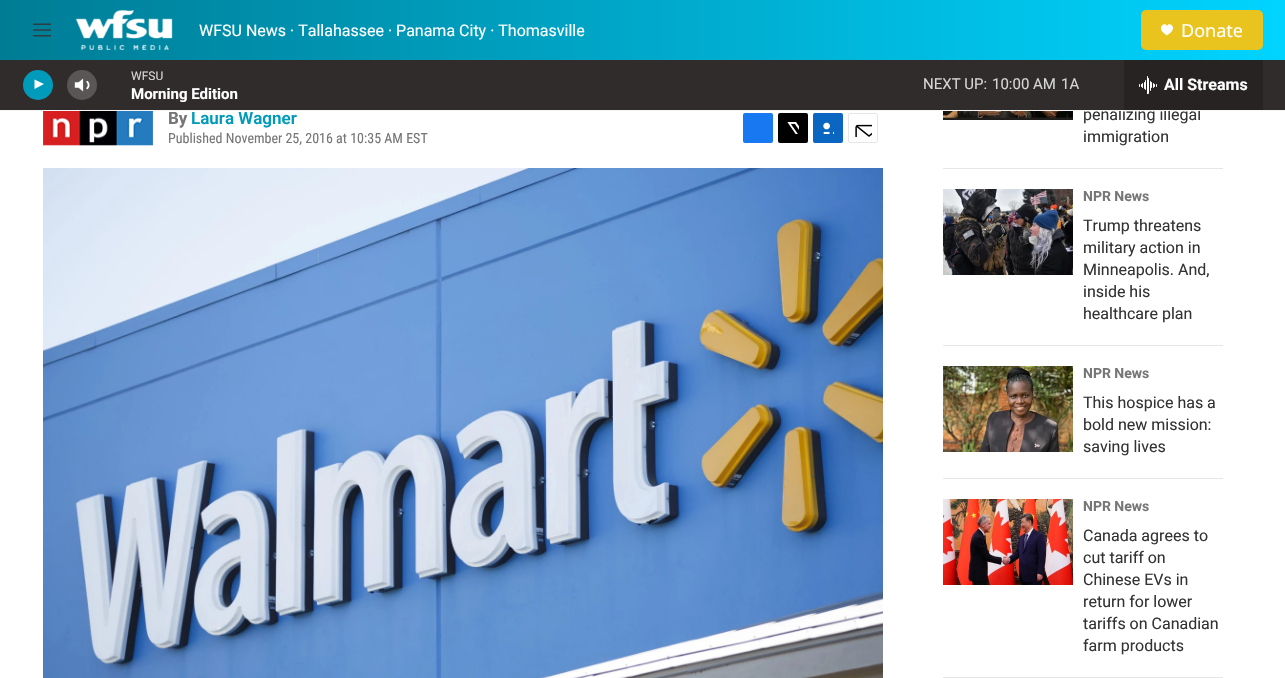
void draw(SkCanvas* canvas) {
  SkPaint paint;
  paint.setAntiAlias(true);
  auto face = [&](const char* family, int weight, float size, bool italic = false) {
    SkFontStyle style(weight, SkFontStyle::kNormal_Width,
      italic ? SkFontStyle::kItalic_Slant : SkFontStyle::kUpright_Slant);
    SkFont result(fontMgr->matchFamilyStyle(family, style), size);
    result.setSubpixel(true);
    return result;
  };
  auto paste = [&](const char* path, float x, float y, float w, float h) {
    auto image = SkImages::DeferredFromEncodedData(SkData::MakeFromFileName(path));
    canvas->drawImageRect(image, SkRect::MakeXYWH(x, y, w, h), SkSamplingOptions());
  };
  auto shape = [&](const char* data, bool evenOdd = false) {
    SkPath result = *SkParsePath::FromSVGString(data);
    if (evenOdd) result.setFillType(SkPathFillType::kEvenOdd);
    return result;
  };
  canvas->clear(0xffffffff);
  {
    const SkColor colors[] = {0xff007c95, 0xff009bba, 0xff00d4ff};
    const float stops[] = {0, 0.35f, 1};
    const SkPoint ends[] = {{0, 55}, {1285, 55}};
    paint.setShader(SkGradientShader::MakeLinear(ends, colors, stops, 3, SkTileMode::kClamp));
    paint.setAlpha(255);
  }
  canvas->drawRect(SkRect::MakeXYWH(0, 0, 1285, 60), paint);
  paste("img/1.png", 33, 23, 18, 14);
  paste("img/2.png", 75, 10, 98, 40);
  paint.setShader(nullptr);
  paint.setColor(0xffe9c31e);
  canvas->drawRoundRect(SkRect::MakeXYWH(1141, 10, 122, 40), 5, 5, paint);
  paint.setColor(0xffffffff);
  canvas->drawPath(shape("M1167 26C1165 21 1154.5 28 1167 35.5C1179.5 28 1169 21 1167 26Z"), paint);
  paste("img/5.png", 43, 111, 110, 35);
  paint.setColor(0xff1778f2);
  canvas->drawRoundRect(SkRect::MakeXYWH(743, 113, 30, 30), 2, 2, paint);
  paint.setColor(0xff000000);
  canvas->drawRoundRect(SkRect::MakeXYWH(778, 113, 30, 30), 2, 2, paint);
  paste("img/6.png", 787, 122, 12, 12);
  paint.setColor(0xff0a66c1);
  canvas->drawRoundRect(SkRect::MakeXYWH(813, 113, 30, 30), 2, 2, paint);
  paste("img/7.png", 823, 122, 11, 12);
  paint.setStroke(true);
  paint.setStrokeWidth(1);
  paint.setColor(0xffe6e6e6);
  canvas->drawRoundRect(SkRect::MakeXYWH(848.5f, 113.5f, 29, 29), 1.5f, 1.5f, paint);
  paste("img/8.png", 855, 124, 17, 13);
  paste("img/9.png", 43, 168, 840, 510);
  paint.setStroke(false);
  canvas->drawRect(SkRect::MakeXYWH(943, 168, 280, 1), paint);
  paste("img/10.png", 943, 111, 130, 9);
  canvas->drawRect(SkRect::MakeXYWH(943, 345, 280, 1), paint);
  paste("img/11.png", 943, 189, 130, 86);
  canvas->drawRect(SkRect::MakeXYWH(943, 478, 280, 1), paint);
  paste("img/12.png", 943, 366, 130, 86);
  canvas->drawRect(SkRect::MakeXYWH(943, 677, 280, 1), paint);
  paste("img/13.png", 943, 499, 130, 86);
  auto f0 = face("Roboto", 400, 16);
  paint.setColor(0xffffffff);
  canvas->drawString("WFSU News · Tallahassee · Panama City · Thomasville", 199, 36, f0, paint);
  auto f1 = face("Noto Sans", 400, 18);
  canvas->drawString("Donate", 1181, 37, f1, paint);
  auto f2 = face("Roboto", 700, 17);
  paint.setColor(0xff767676);
  canvas->drawString("By", 168, 124, f2, paint);
  auto f3 = face("Roboto", 600, 17);
  paint.setColor(0xff009bba);
  canvas->drawString("Laura Wagner", 191, 124, f3, paint);
  auto f4 = face("Roboto Condensed", 400, 14);
  paint.setColor(0xff767676);
  canvas->drawString("Published November 25, 2016 at 10:35 AM EST", 168, 143, f4, paint);
  paint.setColor(0xff333333);
  canvas->drawString("penalizing illegal", 1083, 120, f0, paint);
  paint.setColor(0xff312c2c);
  canvas->drawRect(SkRect::MakeXYWH(0, 60, 1285, 50), paint);
  auto f5 = face("Roboto", 400, 15);
  paint.setColor(0xffd6d5d5);
  {
    const struct { const char* s; float x, y; } items[] = {
      {"1A", 1061, 89},
      {"10:00 AM", 992, 89},
      {"NEXT UP:", 923, 89},
    };
    for (auto [s, x, y] : items) {
      canvas->drawString(s, x, y, f5, paint);
    }
  }
  auto f6 = face("Roboto", 400, 12);
  canvas->drawString("WFSU", 131, 80, f6, paint);
  paste("img/3.png", 74, 78, 16, 14);
  paint.setColor(0x33ffffff);
  canvas->drawCircle(82, 85, 15, paint);
  paint.setColor(0xff009bba);
  canvas->drawCircle(38, 85, 15, paint);
  paint.setColor(0xffffffff);
  canvas->drawPath(shape("M34.5 79.5L44 84L34.5 89Z"), paint);
  paint.setColor(0xff272323);
  canvas->drawRect(SkRect::MakeXYWH(1124, 60, 139, 50), paint);
  paste("img/4.png", 1139, 76, 18, 18);
  auto f7 = face("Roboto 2", 700, 15);
  paint.setColor(0xffffffff);
  canvas->drawString("Morning Edition", 131, 99, f7, paint);
  auto f8 = face("Roboto 2", 700, 16);
  canvas->drawString("All Streams", 1164, 90, f8, paint);
  paint.setColor(0xfff5f5f5);
  canvas->drawRect(SkRect::MakeXYWH(0, 110, 1285, 1), paint);
  paint.setColor(0xff333333);
  canvas->drawString("immigration", 1083, 142, f0, paint);
  auto f9 = face("Roboto", 700, 14);
  paint.setColor(0xff767676);
  canvas->drawString("NPR News", 1083, 201, f9, paint);
  paint.setColor(0xff333333);
  {
    const struct { const char* s; float x, y; } items[] = {
      {"Trump threatens", 1083, 231},
      {"military action in", 1083, 253},
      {"Minneapolis. And,", 1083, 275},
      {"inside his", 1083, 297},
      {"healthcare plan", 1083, 319},
    };
    for (auto [s, x, y] : items) {
      canvas->drawString(s, x, y, f0, paint);
    }
  }
  paint.setColor(0xff767676);
  canvas->drawString("NPR News", 1083, 378, f9, paint);
  paint.setColor(0xff333333);
  {
    const struct { const char* s; float x, y; } items[] = {
      {"This hospice has a", 1083, 408},
      {"bold new mission:", 1083, 430},
      {"saving lives", 1083, 452},
    };
    for (auto [s, x, y] : items) {
      canvas->drawString(s, x, y, f0, paint);
    }
  }
  paint.setColor(0xff767676);
  canvas->drawString("NPR News", 1083, 511, f9, paint);
  paint.setColor(0xff333333);
  {
    const struct { const char* s; float x, y; } items[] = {
      {"Canada agrees to", 1083, 541},
      {"cut tariff on", 1083, 563},
      {"Chinese EVs in", 1083, 585},
      {"return for lower", 1083, 607},
      {"tariffs on Canadian", 1083, 629},
      {"farm products", 1083, 651},
    };
    for (auto [s, x, y] : items) {
      canvas->drawString(s, x, y, f0, paint);
    }
  }
}
